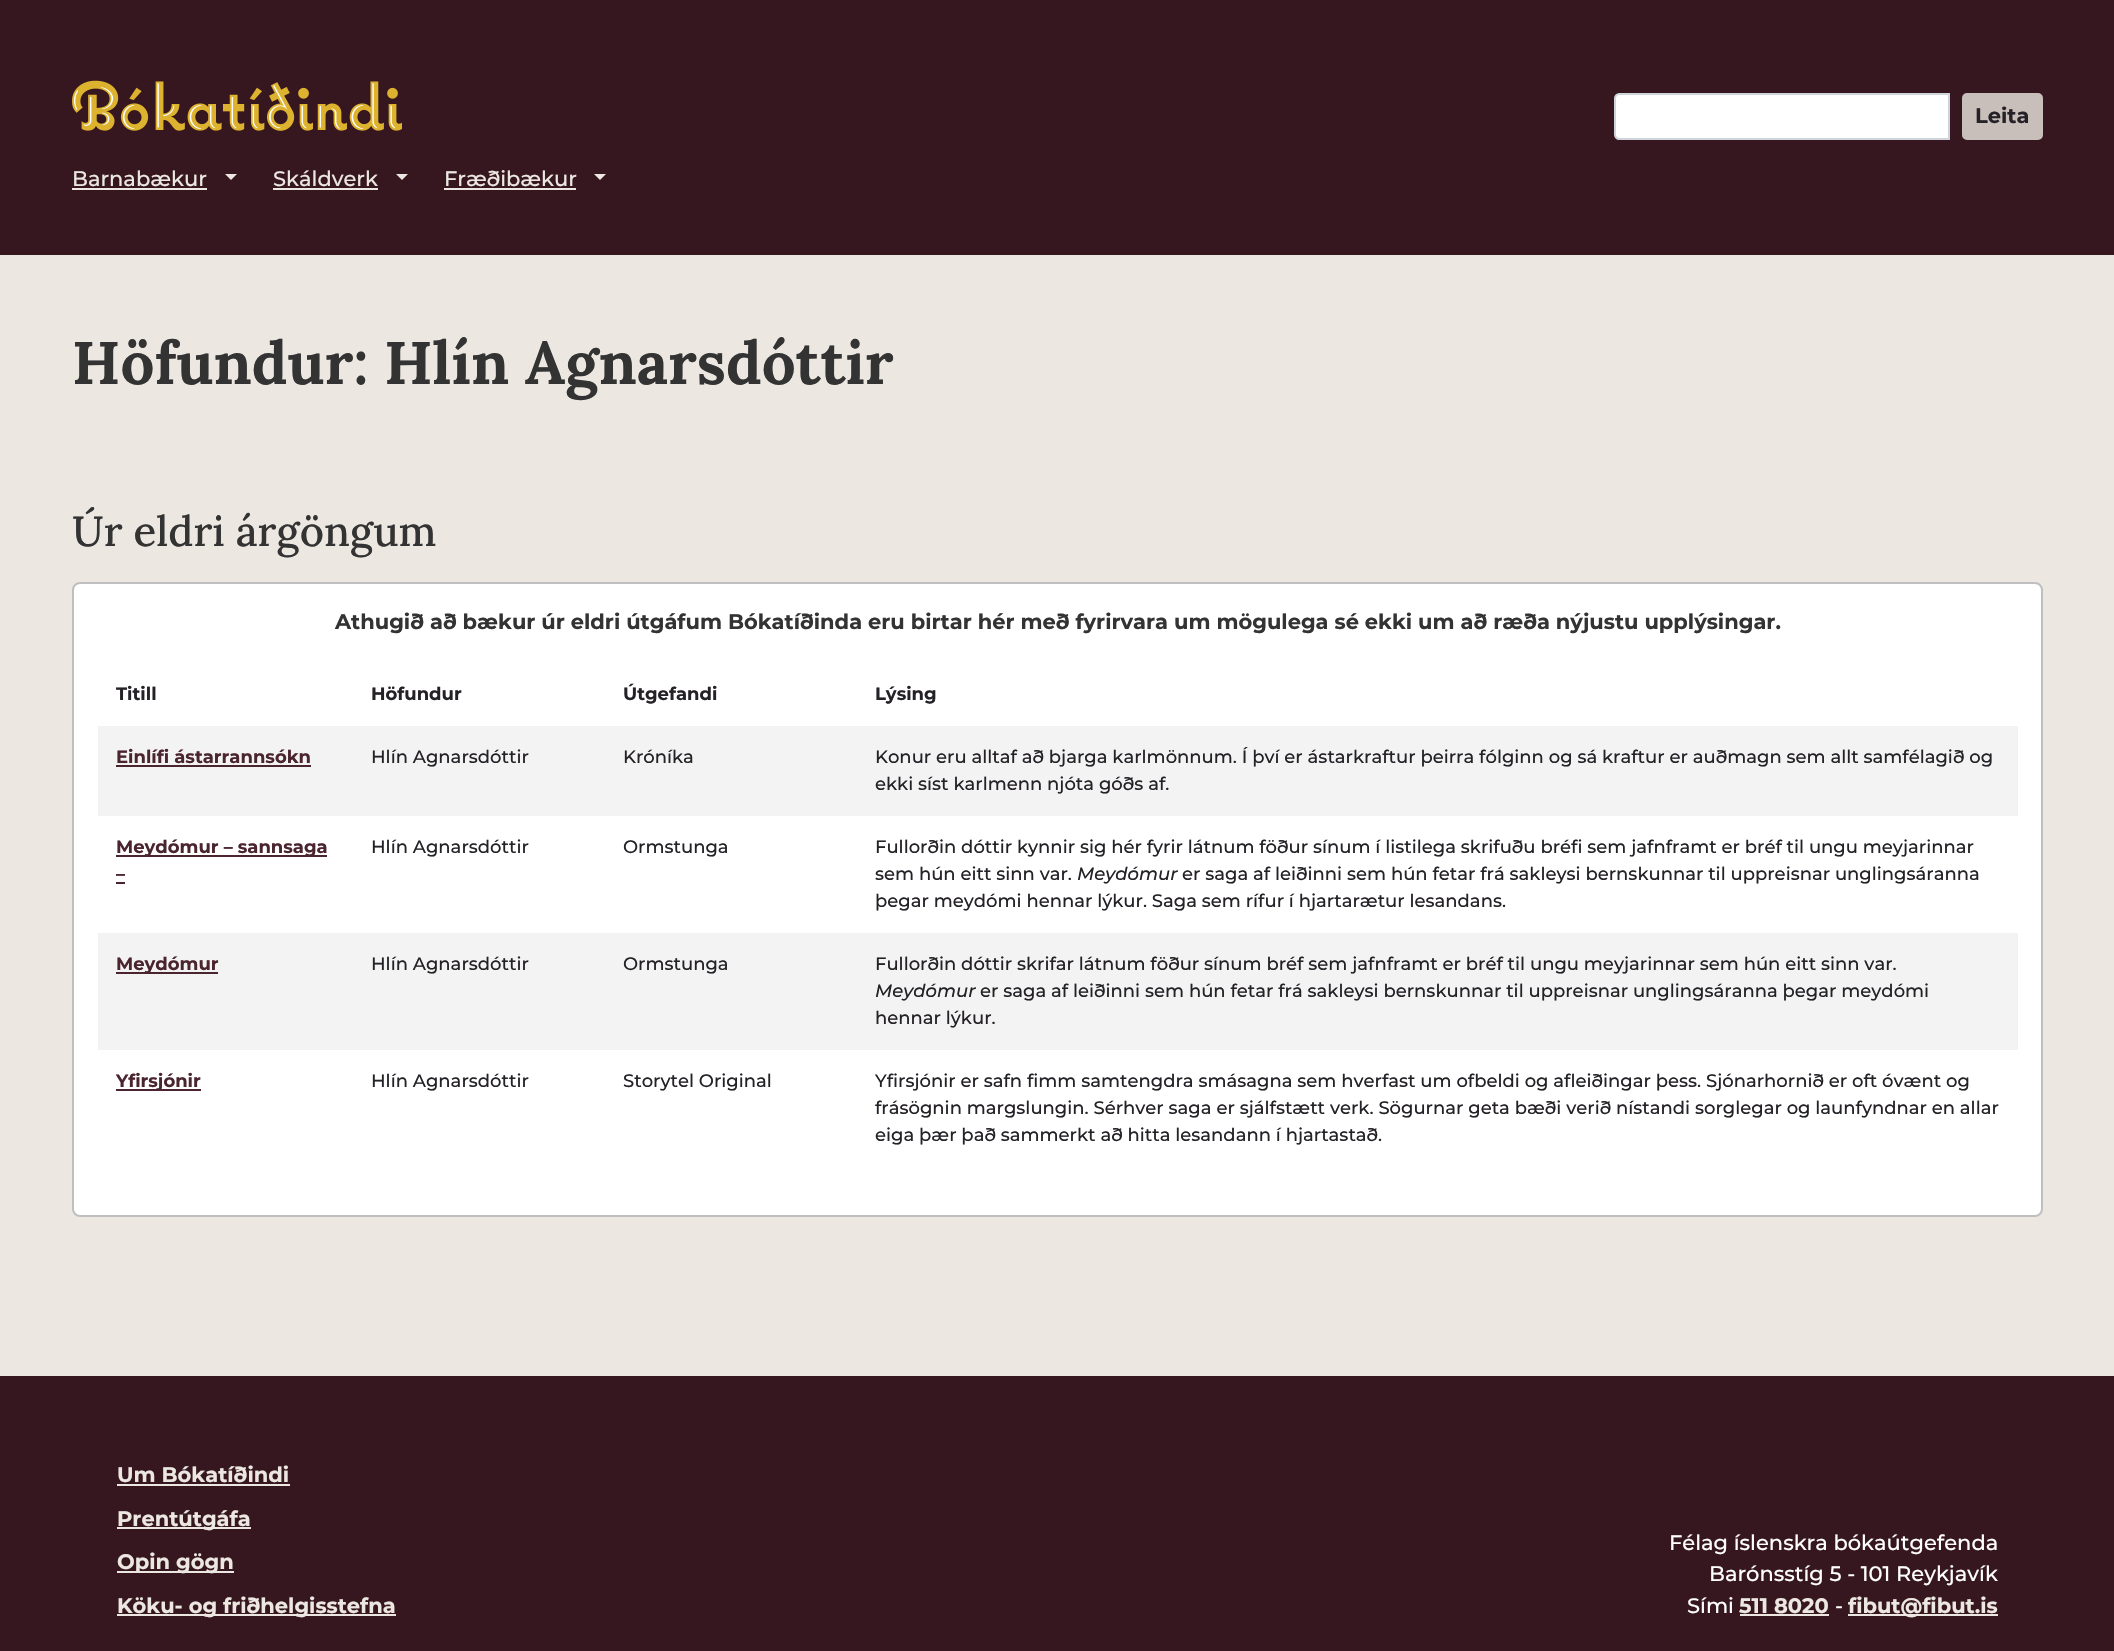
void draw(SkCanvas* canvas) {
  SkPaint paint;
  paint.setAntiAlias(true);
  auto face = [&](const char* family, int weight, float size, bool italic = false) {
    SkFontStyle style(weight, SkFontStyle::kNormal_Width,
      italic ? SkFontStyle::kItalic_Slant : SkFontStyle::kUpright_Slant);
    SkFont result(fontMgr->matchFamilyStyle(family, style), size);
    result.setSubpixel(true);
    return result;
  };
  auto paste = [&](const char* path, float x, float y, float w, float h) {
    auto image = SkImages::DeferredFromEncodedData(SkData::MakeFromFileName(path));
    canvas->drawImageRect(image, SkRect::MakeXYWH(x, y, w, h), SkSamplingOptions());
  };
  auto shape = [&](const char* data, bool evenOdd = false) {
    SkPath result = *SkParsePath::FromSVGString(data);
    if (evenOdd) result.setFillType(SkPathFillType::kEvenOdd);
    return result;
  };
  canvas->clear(0xffece8e1);
  paint.setColor(0xff37171f);
  canvas->drawRect(SkRect::MakeXYWH(0, 0, 2114, 255), paint);
  paste("img/1.png", 72, 80, 330, 51);
  paint.setColor(0xffffffff);
  canvas->drawPath(shape("M1619 94H1949V139H1619C1617 139 1615 137 1615 135V98C1615 96 1617 94 1619 94Z"), paint);
  paint.setStroke(true);
  paint.setStrokeWidth(2);
  paint.setColor(0xffced4da);
  canvas->drawPath(shape("M1619 94H1949V139H1619C1617 139 1615 137 1615 135V98C1615 96 1617 94 1619 94Z"), paint);
  paint.setStroke(false);
  paint.setColor(0xffc8beba);
  canvas->drawRoundRect(SkRect::MakeXYWH(1963, 94, 79, 45), 4, 4, paint);
  paint.setStroke(true);
  canvas->drawRoundRect(SkRect::MakeXYWH(1963, 94, 79, 45), 4, 4, paint);
  paint.setStroke(false);
  paint.setColor(0xffece8e1);
  canvas->drawRect(SkRect::MakeXYWH(72, 188, 135, 2), paint);
  canvas->drawPath(shape("M225 174H237L231 180Z"), paint);
  canvas->drawRect(SkRect::MakeXYWH(273, 188, 105, 2), paint);
  canvas->drawPath(shape("M396 174H408L402 180Z"), paint);
  canvas->drawRect(SkRect::MakeXYWH(444, 188, 132, 2), paint);
  canvas->drawPath(shape("M594 174H606L600 180Z"), paint);
  paint.setColor(0xffffffff);
  canvas->drawRoundRect(SkRect::MakeXYWH(72, 582, 1971, 635), 8, 8, paint);
  paint.setStroke(true);
  paint.setColor(0x40000000);
  canvas->drawRoundRect(SkRect::MakeXYWH(73, 583, 1969, 633), 7, 7, paint);
  paint.setStroke(false);
  {
    const struct { float x, y, w, h; SkColor color; } items[] = {
      {98, 726, 1920, 90, 0xfff3f3f3},
      {116, 765, 195, 2, 0xff4a242e},
      {116, 855, 211, 2, 0xff4a242e},
      {116, 882, 9, 2, 0xff4a242e},
      {98, 933, 1920, 117, 0xfff3f3f3},
      {116, 972, 102, 2, 0xff4a242e},
      {116, 1089, 85, 2, 0xff4a242e},
      {0, 1376, 2114, 275, 0xff37171f},
      {117, 1484, 173, 2, 0xffece8e1},
      {117, 1527, 134, 2, 0xffece8e1},
      {117, 1571, 117, 2, 0xffece8e1},
      {117, 1614, 279, 2, 0xffece8e1},
      {1740, 1614, 89, 2, 0xffece8e1},
      {1848, 1614, 150, 2, 0xffece8e1},
    };
    for (auto [x, y, w, h, color] : items) {
      paint.setColor(color);
      canvas->drawRect(SkRect::MakeXYWH(x, y, w, h), paint);
    }
  }
  auto f0 = face("Montserrat", 700, 21);
  paint.setColor(0xff252227);
  canvas->drawString("Leita", 1975, 123, f0, paint);
  auto f1 = face("Montserrat", 500, 21);
  paint.setColor(0xffece8e1);
  {
    const struct { const char* s; float x, y; } items[] = {
      {"Barnabækur", 72, 186},
      {"Skáldverk", 273, 186},
      {"Fræðibækur", 444, 186},
    };
    for (auto [s, x, y] : items) {
      canvas->drawString(s, x, y, f1, paint);
    }
  }
  auto f2 = face("Lora", 700, 60);
  paint.setColor(0xff333333);
  canvas->drawString("Höfundur: Hlín Agnarsdóttir", 72, 384, f2, paint);
  auto f3 = face("Lora", 500, 42);
  canvas->drawString("Úr eldri árgöngum", 72, 546, f3, paint);
  canvas->drawString("Athugið að bækur úr eldri útgáfum Bókatíðinda eru birtar hér með fyrirvara um mögulega sé ekki um að ræða nýjustu upplýsingar.", 335, 629, f0, paint);
  auto f4 = face("Montserrat", 700, 18);
  paint.setColor(0xff252227);
  {
    const struct { const char* s; float x, y; } items[] = {
      {"Titill", 116, 700},
      {"Höfundur", 371, 700},
      {"Útgefandi", 623, 700},
      {"Lýsing", 875, 700},
    };
    for (auto [s, x, y] : items) {
      canvas->drawString(s, x, y, f4, paint);
    }
  }
  paint.setColor(0xff4a242e);
  canvas->drawString("Einlífi ástarrannsókn", 116, 763, f4, paint);
  auto f5 = face("Montserrat", 500, 18);
  paint.setColor(0xff252227);
  {
    const struct { const char* s; float x, y; } items[] = {
      {"Hlín Agnarsdóttir", 371, 763},
      {"Króníka", 623, 763},
      {"Konur eru alltaf að bjarga karlmönnum. Í því er ástarkraftur þeirra fólginn og sá kraftur er auðmagn sem allt samfélagið og", 875, 763},
      {"ekki síst karlmenn njóta góðs af.", 875, 790},
    };
    for (auto [s, x, y] : items) {
      canvas->drawString(s, x, y, f5, paint);
    }
  }
  paint.setColor(0xff4a242e);
  canvas->drawString("Meydómur – sannsaga", 116, 853, f4, paint);
  canvas->drawString("–", 116, 880, f4, paint);
  paint.setColor(0xff252227);
  {
    const struct { const char* s; float x, y; } items[] = {
      {"Hlín Agnarsdóttir", 371, 853},
      {"Ormstunga", 623, 853},
      {"Fullorðin dóttir kynnir sig hér fyrir látnum föður sínum í listilega skrifuðu bréfi sem jafnframt er bréf til ungu meyjarinnar", 875, 853},
      {"sem hún eitt sinn var.", 875, 880},
    };
    for (auto [s, x, y] : items) {
      canvas->drawString(s, x, y, f5, paint);
    }
  }
  auto f6 = face("Montserrat", 500, 18, true);
  canvas->drawString("Meydómur", 1077, 880, f6, paint);
  canvas->drawString("er saga af leiðinni sem hún fetar frá sakleysi bernskunnar til uppreisnar unglingsáranna", 1182, 880, f5, paint);
  canvas->drawString("þegar meydómi hennar lýkur. Saga sem rífur í hjartarætur lesandans.", 875, 907, f5, paint);
  paint.setColor(0xff4a242e);
  canvas->drawString("Meydómur", 116, 970, f4, paint);
  paint.setColor(0xff252227);
  {
    const struct { const char* s; float x, y; } items[] = {
      {"Hlín Agnarsdóttir", 371, 970},
      {"Ormstunga", 623, 970},
      {"Fullorðin dóttir skrifar látnum föður sínum bréf sem jafnframt er bréf til ungu meyjarinnar sem hún eitt sinn var.", 875, 970},
    };
    for (auto [s, x, y] : items) {
      canvas->drawString(s, x, y, f5, paint);
    }
  }
  canvas->drawString("Meydómur", 875, 997, f6, paint);
  canvas->drawString("er saga af leiðinni sem hún fetar frá sakleysi bernskunnar til uppreisnar unglingsáranna þegar meydómi", 980, 997, f5, paint);
  canvas->drawString("hennar lýkur.", 875, 1024, f5, paint);
  paint.setColor(0xff4a242e);
  canvas->drawString("Yfirsjónir", 116, 1087, f4, paint);
  paint.setColor(0xff252227);
  {
    const struct { const char* s; float x, y; } items[] = {
      {"Hlín Agnarsdóttir", 371, 1087},
      {"Storytel Original", 623, 1087},
      {"Yfirsjónir er safn fimm samtengdra smásagna sem hverfast um ofbeldi og afleiðingar þess. Sjónarhornið er oft óvænt og", 875, 1087},
      {"frásögnin margslungin. Sérhver saga er sjálfstætt verk. Sögurnar geta bæði verið nístandi sorglegar og launfyndnar en allar", 875, 1114},
      {"eiga þær það sammerkt að hitta lesandann í hjartastað.", 875, 1141},
    };
    for (auto [s, x, y] : items) {
      canvas->drawString(s, x, y, f5, paint);
    }
  }
  paint.setColor(0xffece8e1);
  {
    const struct { const char* s; float x, y; } items[] = {
      {"Um Bókatíðindi", 117, 1482},
      {"Prentútgáfa", 117, 1526},
      {"Opin gögn", 117, 1569},
      {"Köku- og friðhelgisstefna", 117, 1613},
    };
    for (auto [s, x, y] : items) {
      canvas->drawString(s, x, y, f0, paint);
    }
  }
  paint.setColor(0xffffffff);
  {
    const struct { const char* s; float x, y; } items[] = {
      {"Félag íslenskra bókaútgefenda", 1669, 1550},
      {"Barónsstíg 5 - 101 Reykjavík", 1709, 1581},
      {"Sími", 1687, 1613},
    };
    for (auto [s, x, y] : items) {
      canvas->drawString(s, x, y, f1, paint);
    }
  }
  paint.setColor(0xffece8e1);
  canvas->drawString("511 8020", 1739, 1613, f0, paint);
  paint.setColor(0xffffffff);
  canvas->drawString("-", 1835, 1613, f1, paint);
  paint.setColor(0xffece8e1);
  canvas->drawString("fibut@fibut.is", 1848, 1613, f0, paint);
}
